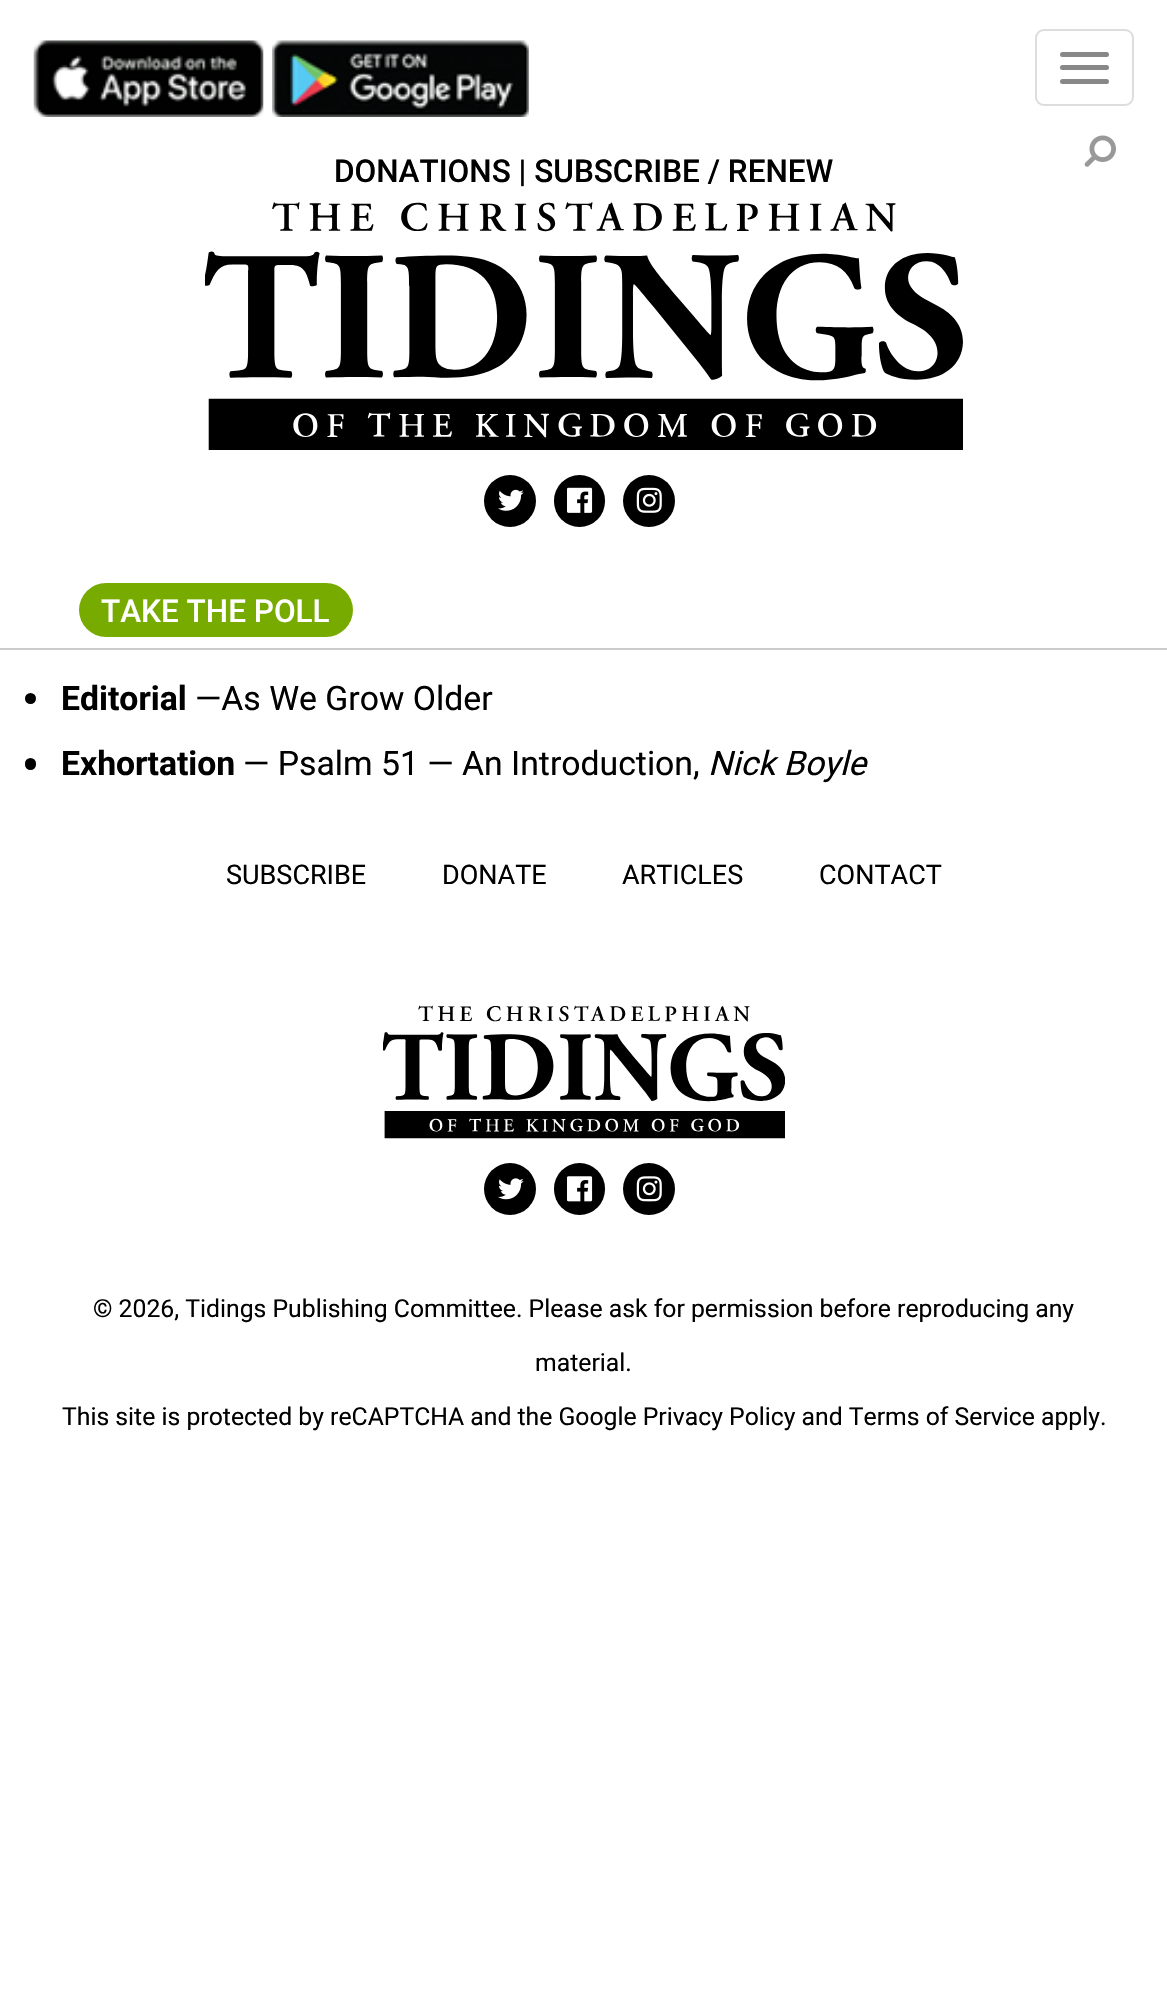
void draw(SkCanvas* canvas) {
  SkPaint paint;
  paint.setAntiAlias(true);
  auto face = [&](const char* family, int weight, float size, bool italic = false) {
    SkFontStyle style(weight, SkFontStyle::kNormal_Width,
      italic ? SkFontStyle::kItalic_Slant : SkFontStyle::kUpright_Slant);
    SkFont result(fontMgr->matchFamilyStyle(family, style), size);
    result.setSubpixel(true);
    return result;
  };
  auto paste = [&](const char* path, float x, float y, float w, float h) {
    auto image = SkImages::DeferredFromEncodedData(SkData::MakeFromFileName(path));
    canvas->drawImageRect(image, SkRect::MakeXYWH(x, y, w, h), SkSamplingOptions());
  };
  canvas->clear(0xffffffff);
  paint.setStroke(true);
  paint.setStrokeWidth(2);
  paint.setColor(0xffdddddd);
  canvas->drawRoundRect(SkRect::MakeXYWH(1036, 30, 97, 75), 8, 8, paint);
  paint.setStroke(false);
  paint.setColor(0xff888888);
  canvas->drawRoundRect(SkRect::MakeXYWH(1060, 52, 49, 5), 2.5f, 2.5f, paint);
  canvas->drawRoundRect(SkRect::MakeXYWH(1060, 65, 49, 5), 2.5f, 2.5f, paint);
  canvas->drawRoundRect(SkRect::MakeXYWH(1060, 79, 49, 5), 2.5f, 2.5f, paint);
  paste("img/1.png", 1084, 135, 32, 32);
  paste("img/2.png", 33, 40, 231, 77);
  paste("img/3.png", 272, 40, 257, 77);
  paste("img/4.png", 205, 202, 758, 248);
  paint.setColor(0xff000000);
  canvas->drawCircle(510, 501, 26, paint);
  paste("img/5.png", 498, 489, 26, 22);
  canvas->drawRoundRect(SkRect::MakeXYWH(554, 475, 51, 52), 25.5f, 25.5f, paint);
  paste("img/6.png", 567, 487, 26, 26);
  canvas->drawCircle(649, 501, 26, paint);
  paste("img/7.png", 636, 487, 26, 26);
  paint.setColor(0xff78ab00);
  canvas->drawRoundRect(SkRect::MakeXYWH(79, 583, 274, 54), 27, 27, paint);
  paint.setColor(0xffcccccc);
  canvas->drawRect(SkRect::MakeXYWH(0, 648, 1167, 2), paint);
  paint.setColor(0xff000000);
  canvas->drawCircle(30.5f, 698.5f, 5.5f, paint);
  canvas->drawRoundRect(SkRect::MakeXYWH(25, 758, 11, 12), 5.5f, 5.5f, paint);
  paste("img/8.png", 383, 1005, 402, 134);
  canvas->drawCircle(510, 1189, 26, paint);
  paste("img/9.png", 498, 1178, 26, 22);
  canvas->drawRoundRect(SkRect::MakeXYWH(554, 1163, 51, 52), 25.5f, 25.5f, paint);
  paste("img/10.png", 567, 1176, 26, 26);
  canvas->drawCircle(649, 1189, 26, paint);
  paste("img/11.png", 636, 1176, 26, 26);
  auto f0 = face("Roboto", 500, 31.5f);
  canvas->drawString("DONATIONS | SUBSCRIBE / RENEW", 334, 182, f0, paint);
  paint.setColor(0xffffffff);
  canvas->drawString("TAKE THE POLL", 101, 622, f0, paint);
  auto f1 = face("Roboto", 700, 33.75f);
  paint.setColor(0xff000000);
  canvas->drawString("Editorial", 61, 710, f1, paint);
  auto f2 = face("Roboto", 400, 33.75f);
  canvas->drawString("—As We Grow Older", 195, 710, f2, paint);
  canvas->drawString("Exhortation", 61, 775, f1, paint);
  canvas->drawString("— Psalm 51 — An Introduction,", 243, 775, f2, paint);
  auto f3 = face("Roboto", 400, 33.75f, true);
  canvas->drawString("Nick Boyle", 708, 775, f3, paint);
  auto f4 = face("Roboto", 400, 27);
  {
    const struct { const char* s; float x, y; } items[] = {
      {"SUBSCRIBE", 226, 884},
      {"DONATE", 442, 884},
      {"ARTICLES", 622, 884},
      {"CONTACT", 819, 884},
    };
    for (auto [s, x, y] : items) {
      canvas->drawString(s, x, y, f4, paint);
    }
  }
  auto f5 = face("Roboto", 400, 24.75f);
  {
    const struct { const char* s; float x, y; } items[] = {
      {"© 2026, Tidings Publishing Committee. Please ask for permission before reproducing any", 93, 1317},
      {"material.", 535, 1371},
      {"This site is protected by reCAPTCHA and the Google Privacy Policy and Terms of Service apply.", 62, 1425},
    };
    for (auto [s, x, y] : items) {
      canvas->drawString(s, x, y, f5, paint);
    }
  }
}
